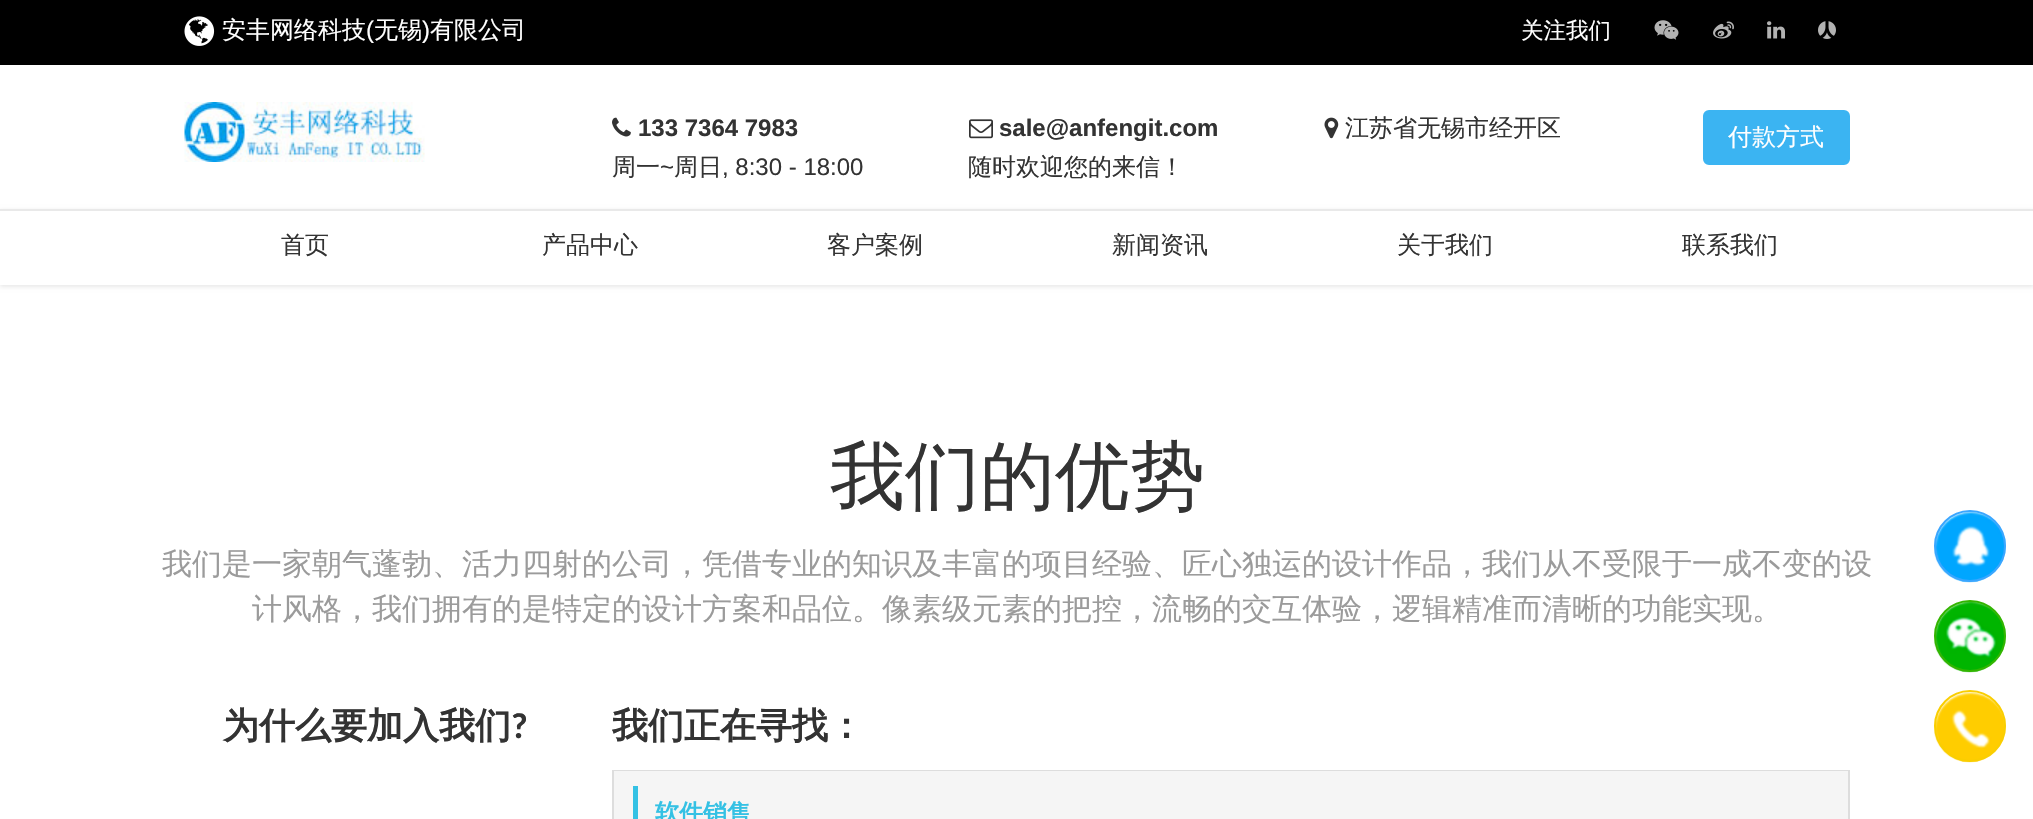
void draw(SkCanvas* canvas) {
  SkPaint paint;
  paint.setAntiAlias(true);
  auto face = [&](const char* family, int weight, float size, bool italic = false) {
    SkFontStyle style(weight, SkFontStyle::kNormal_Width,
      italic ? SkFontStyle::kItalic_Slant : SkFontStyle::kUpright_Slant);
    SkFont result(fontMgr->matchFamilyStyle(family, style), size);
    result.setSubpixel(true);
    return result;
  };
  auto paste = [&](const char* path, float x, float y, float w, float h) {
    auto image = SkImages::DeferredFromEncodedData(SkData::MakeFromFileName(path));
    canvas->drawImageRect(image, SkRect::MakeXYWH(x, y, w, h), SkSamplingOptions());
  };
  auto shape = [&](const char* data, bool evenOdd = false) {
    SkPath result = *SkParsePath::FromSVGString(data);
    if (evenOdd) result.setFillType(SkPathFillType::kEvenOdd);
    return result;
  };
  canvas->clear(0xffffffff);
  paint.setColor(0xff000000);
  canvas->drawRect(SkRect::MakeXYWH(0, 0, 2033, 65), paint);
  paste("img/1.png", 184, 16, 31, 30);
  paste("img/2.png", 1654, 20, 25, 20);
  paste("img/3.png", 1713, 21, 21, 18);
  paste("img/4.png", 1767, 21, 18, 18);
  paste("img/5.png", 1818, 21, 18, 18);
  paste("img/6.png", 184, 102, 241, 60);
  paste("img/7.png", 612, 117, 19, 20);
  paste("img/8.png", 969, 119, 24, 20);
  paste("img/9.png", 1324, 117, 15, 22);
  paint.setColor(0xff3bb4f2);
  canvas->drawRoundRect(SkRect::MakeXYWH(1704, 111, 145, 53), 5, 5, paint);
  paint.setStroke(true);
  paint.setStrokeWidth(2);
  canvas->drawRoundRect(SkRect::MakeXYWH(1704, 111, 145, 53), 5, 5, paint);
  canvas->save();
  canvas->clipPath(shape("M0 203H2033V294H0ZM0 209H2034V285H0Z", true), true);
  paint.setStroke(false);
  paint.setColor(0xffe9e9e9);
  paint.setMaskFilter(SkMaskFilter::MakeBlur(kNormal_SkBlurStyle, 2));
  canvas->drawRect(SkRect::MakeXYWH(0, 210, 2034, 77), paint);
  paint.setMaskFilter(nullptr);
  canvas->restore();
  canvas->drawRect(SkRect::MakeXYWH(0, 209, 2033, 2), paint);
  paint.setStroke(true);
  paint.setColor(0xffdddddd);
  canvas->drawRect(SkRect::MakeXYWH(613, 771, 1236, 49), paint);
  paint.setStroke(false);
  paint.setColor(0xfff5f5f5);
  canvas->drawRect(SkRect::MakeXYWH(614, 771, 1234, 48), paint);
  paint.setColor(0xff34c1e4);
  canvas->drawRect(SkRect::MakeXYWH(633, 786, 5, 33), paint);
  paste("img/10.png", 1934, 510, 72, 73);
  paint.setStroke(true);
  paint.setColor(0xff3aa6ff);
  canvas->drawCircle(1970, 546, 35, paint);
  paste("img/11.png", 1934, 601, 72, 72);
  paint.setColor(0xff33b500);
  canvas->drawCircle(1970, 636, 35, paint);
  paste("img/12.png", 1934, 692, 72, 71);
  paint.setColor(0xffface00);
  canvas->drawCircle(1970, 726, 35, paint);
  auto f0 = face("WenQuanYi Zen Hei", 500, 24);
  paint.setStroke(false);
  paint.setColor(0xffffffff);
  canvas->drawString("安丰网络科技", 222, 38, f0, paint);
  auto f1 = face("Liberation Sans", 400, 24);
  canvas->drawString("(", 366, 38, f1, paint);
  canvas->drawString("无锡", 374, 38, f0, paint);
  canvas->drawString(")", 422, 38, f1, paint);
  canvas->drawString("有限公司", 430, 38, f0, paint);
  auto f2 = face("WenQuanYi Zen Hei", 500, 22.5f);
  canvas->drawString("关注我们", 1521, 38, f2, paint);
  auto f3 = face("Liberation Sans", 700, 24);
  paint.setColor(0xff333333);
  canvas->drawString("133 7364 7983", 638, 136, f3, paint);
  canvas->drawString("周一", 612, 175, f0, paint);
  canvas->drawString("~", 660, 175, f1, paint);
  canvas->drawString("周日", 674, 175, f0, paint);
  canvas->drawString(", 8:30 - 18:00", 722, 175, f1, paint);
  canvas->drawString("sale@anfengit.com", 999, 136, f3, paint);
  canvas->drawString("随时欢迎您的来信！", 968, 175, f0, paint);
  canvas->drawString("江苏省无锡市经开区", 1345, 136, f0, paint);
  paint.setColor(0xffffffff);
  canvas->drawString("付款方式", 1728, 145, f0, paint);
  paint.setColor(0xff333333);
  {
    const struct { const char* s; float x, y; } items[] = {
      {"首页", 281, 253},
      {"产品中心", 542, 253},
      {"客户案例", 827, 253},
      {"新闻资讯", 1112, 253},
      {"关于我们", 1397, 253},
      {"联系我们", 1682, 253},
    };
    for (auto [s, x, y] : items) {
      canvas->drawString(s, x, y, f0, paint);
    }
  }
  auto f4 = face("WenQuanYi Zen Hei", 500, 75);
  canvas->drawString("我们的优势", 830, 502, f4, paint);
  auto f5 = face("WenQuanYi Zen Hei", 500, 30);
  paint.setColor(0xff9b9b9b);
  canvas->drawString("我们是一家朝气蓬勃、活力四射的公司，凭借专业的知识及丰富的项目经验、匠心独运的设计作品，我们从不受限于一成不变的设", 162, 574, f5, paint);
  canvas->drawString("计风格，我们拥有的是特定的设计方案和品位。像素级元素的把控，流畅的交互体验，逻辑精准而清晰的功能实现。", 252, 619, f5, paint);
  auto f6 = face("WenQuanYi Zen Hei", 700, 36);
  paint.setColor(0xff333333);
  canvas->drawString("为什么要加入我们", 223, 738, f6, paint);
  auto f7 = face("Carlito", 700, 36);
  canvas->drawString("?", 511, 738, f7, paint);
  canvas->drawString("我们正在寻找：", 612, 738, f6, paint);
  auto f8 = face("WenQuanYi Zen Hei", 700, 24);
  paint.setColor(0xff34c1e4);
  canvas->drawString("软件销售", 655, 821, f8, paint);
}
